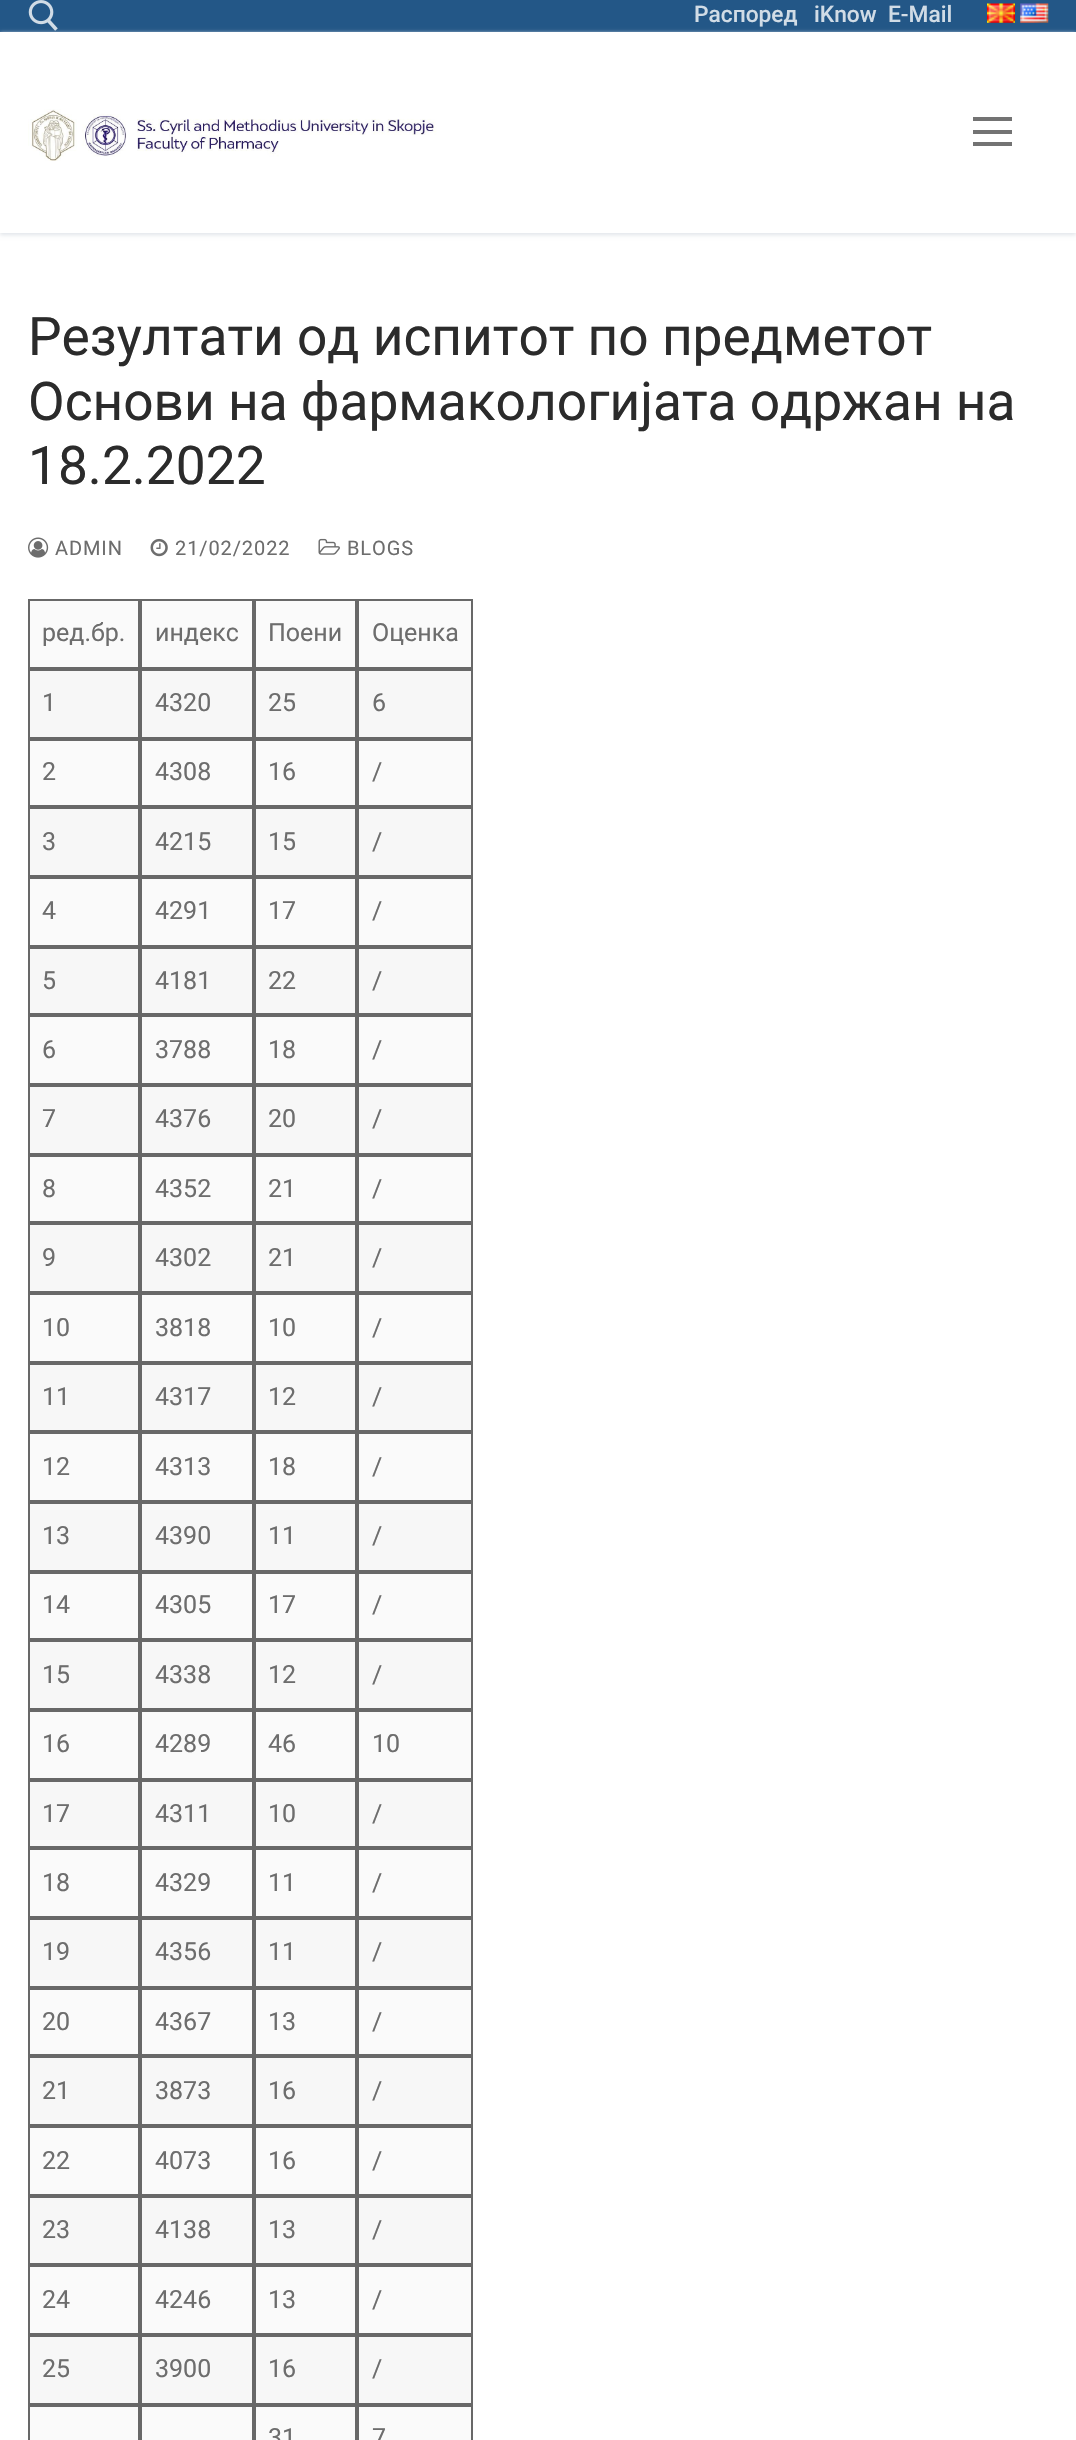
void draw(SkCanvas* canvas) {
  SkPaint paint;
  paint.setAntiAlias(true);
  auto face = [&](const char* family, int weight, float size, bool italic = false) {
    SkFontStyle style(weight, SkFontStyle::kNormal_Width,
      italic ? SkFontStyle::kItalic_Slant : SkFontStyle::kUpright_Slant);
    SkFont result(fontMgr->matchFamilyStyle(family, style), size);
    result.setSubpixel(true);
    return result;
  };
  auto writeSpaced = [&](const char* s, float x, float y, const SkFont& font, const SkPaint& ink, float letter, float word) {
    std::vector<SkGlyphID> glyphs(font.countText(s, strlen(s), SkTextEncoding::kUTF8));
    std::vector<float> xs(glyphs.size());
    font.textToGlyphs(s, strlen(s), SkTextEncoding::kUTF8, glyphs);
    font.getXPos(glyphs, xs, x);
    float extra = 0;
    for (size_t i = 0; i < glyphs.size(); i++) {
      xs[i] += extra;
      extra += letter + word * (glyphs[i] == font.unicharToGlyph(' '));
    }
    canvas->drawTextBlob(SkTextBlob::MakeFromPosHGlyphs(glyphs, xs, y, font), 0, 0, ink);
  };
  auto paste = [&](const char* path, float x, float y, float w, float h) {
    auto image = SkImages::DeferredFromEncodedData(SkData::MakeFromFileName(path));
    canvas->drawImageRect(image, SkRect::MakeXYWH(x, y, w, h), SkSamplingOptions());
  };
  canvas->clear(0xffffffff);
  paint.setColor(0xff235787);
  canvas->drawRect(SkRect::MakeXYWH(0, 0, 1076, 32), paint);
  paint.setColor(0xffe1e5ea);
  paint.setMaskFilter(SkMaskFilter::MakeBlur(kNormal_SkBlurStyle, 2));
  canvas->drawRect(SkRect::MakeXYWH(0, 33, 1076, 202), paint);
  paint.setMaskFilter(nullptr);
  paste("img/1.png", 28, 0, 30, 31);
  paste("img/2.png", 987, 3, 28, 20);
  paste("img/3.png", 1020, 3, 29, 20);
  paint.setColor(0xffffffff);
  canvas->drawRect(SkRect::MakeXYWH(0, 32, 1076, 201), paint);
  paste("img/4.png", 28, 109, 409, 52);
  {
    const struct { float x, y, w, h; SkColor color; } items[] = {
      {973, 130, 39, 4, 0xff737373},
      {973, 117, 39, 4, 0xff737373},
      {973, 142, 39, 4, 0xff737373},
    };
    for (auto [x, y, w, h, color] : items) {
      paint.setColor(color);
      canvas->drawRect(SkRect::MakeXYWH(x, y, w, h), paint);
    }
  }
  paste("img/5.png", 28, 537, 21, 21);
  paste("img/6.png", 150, 538, 18, 19);
  paste("img/7.png", 318, 538, 22, 17);
  paint.setColor(0xfffafafa);
  canvas->drawRect(SkRect::MakeXYWH(29, 600, 110, 68), paint);
  paint.setStroke(true);
  paint.setStrokeWidth(2);
  paint.setColor(0xff686868);
  canvas->drawRect(SkRect::MakeXYWH(29, 600, 110, 68), paint);
  paint.setStroke(false);
  paint.setColor(0xfffafafa);
  canvas->drawRect(SkRect::MakeXYWH(141, 600, 112, 68), paint);
  paint.setStroke(true);
  paint.setColor(0xff686868);
  canvas->drawRect(SkRect::MakeXYWH(141, 600, 112, 68), paint);
  paint.setStroke(false);
  paint.setColor(0xfffafafa);
  canvas->drawRect(SkRect::MakeXYWH(255, 600, 101, 68), paint);
  paint.setStroke(true);
  paint.setColor(0xff686868);
  canvas->drawRect(SkRect::MakeXYWH(255, 600, 101, 68), paint);
  paint.setStroke(false);
  paint.setColor(0xfffafafa);
  canvas->drawRect(SkRect::MakeXYWH(358, 600, 114, 68), paint);
  paint.setStroke(true);
  paint.setColor(0xff686868);
  canvas->drawRect(SkRect::MakeXYWH(358, 600, 114, 68), paint);
  paint.setStroke(false);
  paint.setColor(0xfff7f7f7);
  canvas->drawRect(SkRect::MakeXYWH(29, 670, 110, 68), paint);
  paint.setStroke(true);
  paint.setColor(0xff686868);
  canvas->drawRect(SkRect::MakeXYWH(29, 670, 110, 68), paint);
  paint.setStroke(false);
  paint.setColor(0xfff7f7f7);
  canvas->drawRect(SkRect::MakeXYWH(141, 670, 112, 68), paint);
  paint.setStroke(true);
  paint.setColor(0xff686868);
  canvas->drawRect(SkRect::MakeXYWH(141, 670, 112, 68), paint);
  paint.setStroke(false);
  paint.setColor(0xfff7f7f7);
  canvas->drawRect(SkRect::MakeXYWH(255, 670, 101, 68), paint);
  paint.setStroke(true);
  paint.setColor(0xff686868);
  canvas->drawRect(SkRect::MakeXYWH(255, 670, 101, 68), paint);
  paint.setStroke(false);
  paint.setColor(0xfff7f7f7);
  canvas->drawRect(SkRect::MakeXYWH(358, 670, 114, 68), paint);
  paint.setStroke(true);
  paint.setColor(0xff686868);
  canvas->drawRect(SkRect::MakeXYWH(358, 670, 114, 68), paint);
  paint.setStroke(false);
  paint.setColor(0xfffafafa);
  canvas->drawRect(SkRect::MakeXYWH(29, 740, 110, 66), paint);
  paint.setStroke(true);
  paint.setColor(0xff686868);
  canvas->drawRect(SkRect::MakeXYWH(29, 740, 110, 66), paint);
  paint.setStroke(false);
  paint.setColor(0xfffafafa);
  canvas->drawRect(SkRect::MakeXYWH(141, 740, 112, 66), paint);
  paint.setStroke(true);
  paint.setColor(0xff686868);
  canvas->drawRect(SkRect::MakeXYWH(141, 740, 112, 66), paint);
  paint.setStroke(false);
  paint.setColor(0xfffafafa);
  canvas->drawRect(SkRect::MakeXYWH(255, 740, 101, 66), paint);
  paint.setStroke(true);
  paint.setColor(0xff686868);
  canvas->drawRect(SkRect::MakeXYWH(255, 740, 101, 66), paint);
  paint.setStroke(false);
  paint.setColor(0xfffafafa);
  canvas->drawRect(SkRect::MakeXYWH(358, 740, 114, 66), paint);
  paint.setStroke(true);
  paint.setColor(0xff686868);
  canvas->drawRect(SkRect::MakeXYWH(358, 740, 114, 66), paint);
  paint.setStroke(false);
  paint.setColor(0xfff7f7f7);
  canvas->drawRect(SkRect::MakeXYWH(29, 808, 110, 68), paint);
  paint.setStroke(true);
  paint.setColor(0xff686868);
  canvas->drawRect(SkRect::MakeXYWH(29, 808, 110, 68), paint);
  paint.setStroke(false);
  paint.setColor(0xfff7f7f7);
  canvas->drawRect(SkRect::MakeXYWH(141, 808, 112, 68), paint);
  paint.setStroke(true);
  paint.setColor(0xff686868);
  canvas->drawRect(SkRect::MakeXYWH(141, 808, 112, 68), paint);
  paint.setStroke(false);
  paint.setColor(0xfff7f7f7);
  canvas->drawRect(SkRect::MakeXYWH(255, 808, 101, 68), paint);
  paint.setStroke(true);
  paint.setColor(0xff686868);
  canvas->drawRect(SkRect::MakeXYWH(255, 808, 101, 68), paint);
  paint.setStroke(false);
  paint.setColor(0xfff7f7f7);
  canvas->drawRect(SkRect::MakeXYWH(358, 808, 114, 68), paint);
  paint.setStroke(true);
  paint.setColor(0xff686868);
  canvas->drawRect(SkRect::MakeXYWH(358, 808, 114, 68), paint);
  paint.setStroke(false);
  paint.setColor(0xfffafafa);
  canvas->drawRect(SkRect::MakeXYWH(29, 878, 110, 68), paint);
  paint.setStroke(true);
  paint.setColor(0xff686868);
  canvas->drawRect(SkRect::MakeXYWH(29, 878, 110, 68), paint);
  paint.setStroke(false);
  paint.setColor(0xfffafafa);
  canvas->drawRect(SkRect::MakeXYWH(141, 878, 112, 68), paint);
  paint.setStroke(true);
  paint.setColor(0xff686868);
  canvas->drawRect(SkRect::MakeXYWH(141, 878, 112, 68), paint);
  paint.setStroke(false);
  paint.setColor(0xfffafafa);
  canvas->drawRect(SkRect::MakeXYWH(255, 878, 101, 68), paint);
  paint.setStroke(true);
  paint.setColor(0xff686868);
  canvas->drawRect(SkRect::MakeXYWH(255, 878, 101, 68), paint);
  paint.setStroke(false);
  paint.setColor(0xfffafafa);
  canvas->drawRect(SkRect::MakeXYWH(358, 878, 114, 68), paint);
  paint.setStroke(true);
  paint.setColor(0xff686868);
  canvas->drawRect(SkRect::MakeXYWH(358, 878, 114, 68), paint);
  paint.setStroke(false);
  paint.setColor(0xfff7f7f7);
  canvas->drawRect(SkRect::MakeXYWH(29, 948, 110, 66), paint);
  paint.setStroke(true);
  paint.setColor(0xff686868);
  canvas->drawRect(SkRect::MakeXYWH(29, 948, 110, 66), paint);
  paint.setStroke(false);
  paint.setColor(0xfff7f7f7);
  canvas->drawRect(SkRect::MakeXYWH(141, 948, 112, 66), paint);
  paint.setStroke(true);
  paint.setColor(0xff686868);
  canvas->drawRect(SkRect::MakeXYWH(141, 948, 112, 66), paint);
  paint.setStroke(false);
  paint.setColor(0xfff7f7f7);
  canvas->drawRect(SkRect::MakeXYWH(255, 948, 101, 66), paint);
  paint.setStroke(true);
  paint.setColor(0xff686868);
  canvas->drawRect(SkRect::MakeXYWH(255, 948, 101, 66), paint);
  paint.setStroke(false);
  paint.setColor(0xfff7f7f7);
  canvas->drawRect(SkRect::MakeXYWH(358, 948, 114, 66), paint);
  paint.setStroke(true);
  paint.setColor(0xff686868);
  canvas->drawRect(SkRect::MakeXYWH(358, 948, 114, 66), paint);
  paint.setStroke(false);
  paint.setColor(0xfffafafa);
  canvas->drawRect(SkRect::MakeXYWH(29, 1016, 110, 68), paint);
  paint.setStroke(true);
  paint.setColor(0xff686868);
  canvas->drawRect(SkRect::MakeXYWH(29, 1016, 110, 68), paint);
  paint.setStroke(false);
  paint.setColor(0xfffafafa);
  canvas->drawRect(SkRect::MakeXYWH(141, 1016, 112, 68), paint);
  paint.setStroke(true);
  paint.setColor(0xff686868);
  canvas->drawRect(SkRect::MakeXYWH(141, 1016, 112, 68), paint);
  paint.setStroke(false);
  paint.setColor(0xfffafafa);
  canvas->drawRect(SkRect::MakeXYWH(255, 1016, 101, 68), paint);
  paint.setStroke(true);
  paint.setColor(0xff686868);
  canvas->drawRect(SkRect::MakeXYWH(255, 1016, 101, 68), paint);
  paint.setStroke(false);
  paint.setColor(0xfffafafa);
  canvas->drawRect(SkRect::MakeXYWH(358, 1016, 114, 68), paint);
  paint.setStroke(true);
  paint.setColor(0xff686868);
  canvas->drawRect(SkRect::MakeXYWH(358, 1016, 114, 68), paint);
  paint.setStroke(false);
  paint.setColor(0xfff7f7f7);
  canvas->drawRect(SkRect::MakeXYWH(29, 1086, 110, 68), paint);
  paint.setStroke(true);
  paint.setColor(0xff686868);
  canvas->drawRect(SkRect::MakeXYWH(29, 1086, 110, 68), paint);
  paint.setStroke(false);
  paint.setColor(0xfff7f7f7);
  canvas->drawRect(SkRect::MakeXYWH(141, 1086, 112, 68), paint);
  paint.setStroke(true);
  paint.setColor(0xff686868);
  canvas->drawRect(SkRect::MakeXYWH(141, 1086, 112, 68), paint);
  paint.setStroke(false);
  paint.setColor(0xfff7f7f7);
  canvas->drawRect(SkRect::MakeXYWH(255, 1086, 101, 68), paint);
  paint.setStroke(true);
  paint.setColor(0xff686868);
  canvas->drawRect(SkRect::MakeXYWH(255, 1086, 101, 68), paint);
  paint.setStroke(false);
  paint.setColor(0xfff7f7f7);
  canvas->drawRect(SkRect::MakeXYWH(358, 1086, 114, 68), paint);
  paint.setStroke(true);
  paint.setColor(0xff686868);
  canvas->drawRect(SkRect::MakeXYWH(358, 1086, 114, 68), paint);
  paint.setStroke(false);
  paint.setColor(0xfffafafa);
  canvas->drawRect(SkRect::MakeXYWH(29, 1156, 110, 66), paint);
  paint.setStroke(true);
  paint.setColor(0xff686868);
  canvas->drawRect(SkRect::MakeXYWH(29, 1156, 110, 66), paint);
  paint.setStroke(false);
  paint.setColor(0xfffafafa);
  canvas->drawRect(SkRect::MakeXYWH(141, 1156, 112, 66), paint);
  paint.setStroke(true);
  paint.setColor(0xff686868);
  canvas->drawRect(SkRect::MakeXYWH(141, 1156, 112, 66), paint);
  paint.setStroke(false);
  paint.setColor(0xfffafafa);
  canvas->drawRect(SkRect::MakeXYWH(255, 1156, 101, 66), paint);
  paint.setStroke(true);
  paint.setColor(0xff686868);
  canvas->drawRect(SkRect::MakeXYWH(255, 1156, 101, 66), paint);
  paint.setStroke(false);
  paint.setColor(0xfffafafa);
  canvas->drawRect(SkRect::MakeXYWH(358, 1156, 114, 66), paint);
  paint.setStroke(true);
  paint.setColor(0xff686868);
  canvas->drawRect(SkRect::MakeXYWH(358, 1156, 114, 66), paint);
  paint.setStroke(false);
  paint.setColor(0xfff7f7f7);
  canvas->drawRect(SkRect::MakeXYWH(29, 1224, 110, 68), paint);
  paint.setStroke(true);
  paint.setColor(0xff686868);
  canvas->drawRect(SkRect::MakeXYWH(29, 1224, 110, 68), paint);
  paint.setStroke(false);
  paint.setColor(0xfff7f7f7);
  canvas->drawRect(SkRect::MakeXYWH(141, 1224, 112, 68), paint);
  paint.setStroke(true);
  paint.setColor(0xff686868);
  canvas->drawRect(SkRect::MakeXYWH(141, 1224, 112, 68), paint);
  paint.setStroke(false);
  paint.setColor(0xfff7f7f7);
  canvas->drawRect(SkRect::MakeXYWH(255, 1224, 101, 68), paint);
  paint.setStroke(true);
  paint.setColor(0xff686868);
  canvas->drawRect(SkRect::MakeXYWH(255, 1224, 101, 68), paint);
  paint.setStroke(false);
  paint.setColor(0xfff7f7f7);
  canvas->drawRect(SkRect::MakeXYWH(358, 1224, 114, 68), paint);
  paint.setStroke(true);
  paint.setColor(0xff686868);
  canvas->drawRect(SkRect::MakeXYWH(358, 1224, 114, 68), paint);
  paint.setStroke(false);
  paint.setColor(0xfffafafa);
  canvas->drawRect(SkRect::MakeXYWH(29, 1294, 110, 68), paint);
  paint.setStroke(true);
  paint.setColor(0xff686868);
  canvas->drawRect(SkRect::MakeXYWH(29, 1294, 110, 68), paint);
  paint.setStroke(false);
  paint.setColor(0xfffafafa);
  canvas->drawRect(SkRect::MakeXYWH(141, 1294, 112, 68), paint);
  paint.setStroke(true);
  paint.setColor(0xff686868);
  canvas->drawRect(SkRect::MakeXYWH(141, 1294, 112, 68), paint);
  paint.setStroke(false);
  paint.setColor(0xfffafafa);
  canvas->drawRect(SkRect::MakeXYWH(255, 1294, 101, 68), paint);
  paint.setStroke(true);
  paint.setColor(0xff686868);
  canvas->drawRect(SkRect::MakeXYWH(255, 1294, 101, 68), paint);
  paint.setStroke(false);
  paint.setColor(0xfffafafa);
  canvas->drawRect(SkRect::MakeXYWH(358, 1294, 114, 68), paint);
  paint.setStroke(true);
  paint.setColor(0xff686868);
  canvas->drawRect(SkRect::MakeXYWH(358, 1294, 114, 68), paint);
  paint.setStroke(false);
  paint.setColor(0xfff7f7f7);
  canvas->drawRect(SkRect::MakeXYWH(29, 1364, 110, 67), paint);
  paint.setStroke(true);
  paint.setColor(0xff686868);
  canvas->drawRect(SkRect::MakeXYWH(29, 1364, 110, 67), paint);
  paint.setStroke(false);
  paint.setColor(0xfff7f7f7);
  canvas->drawRect(SkRect::MakeXYWH(141, 1364, 112, 67), paint);
  paint.setStroke(true);
  paint.setColor(0xff686868);
  canvas->drawRect(SkRect::MakeXYWH(141, 1364, 112, 67), paint);
  paint.setStroke(false);
  paint.setColor(0xfff7f7f7);
  canvas->drawRect(SkRect::MakeXYWH(255, 1364, 101, 67), paint);
  paint.setStroke(true);
  paint.setColor(0xff686868);
  canvas->drawRect(SkRect::MakeXYWH(255, 1364, 101, 67), paint);
  paint.setStroke(false);
  paint.setColor(0xfff7f7f7);
  canvas->drawRect(SkRect::MakeXYWH(358, 1364, 114, 67), paint);
  paint.setStroke(true);
  paint.setColor(0xff686868);
  canvas->drawRect(SkRect::MakeXYWH(358, 1364, 114, 67), paint);
  paint.setStroke(false);
  paint.setColor(0xfffafafa);
  canvas->drawRect(SkRect::MakeXYWH(29, 1433, 110, 68), paint);
  paint.setStroke(true);
  paint.setColor(0xff686868);
  canvas->drawRect(SkRect::MakeXYWH(29, 1433, 110, 68), paint);
  paint.setStroke(false);
  paint.setColor(0xfffafafa);
  canvas->drawRect(SkRect::MakeXYWH(141, 1433, 112, 68), paint);
  paint.setStroke(true);
  paint.setColor(0xff686868);
  canvas->drawRect(SkRect::MakeXYWH(141, 1433, 112, 68), paint);
  paint.setStroke(false);
  paint.setColor(0xfffafafa);
  canvas->drawRect(SkRect::MakeXYWH(255, 1433, 101, 68), paint);
  paint.setStroke(true);
  paint.setColor(0xff686868);
  canvas->drawRect(SkRect::MakeXYWH(255, 1433, 101, 68), paint);
  paint.setStroke(false);
  paint.setColor(0xfffafafa);
  canvas->drawRect(SkRect::MakeXYWH(358, 1433, 114, 68), paint);
  paint.setStroke(true);
  paint.setColor(0xff686868);
  canvas->drawRect(SkRect::MakeXYWH(358, 1433, 114, 68), paint);
  paint.setStroke(false);
  paint.setColor(0xfff7f7f7);
  canvas->drawRect(SkRect::MakeXYWH(29, 1503, 110, 68), paint);
  paint.setStroke(true);
  paint.setColor(0xff686868);
  canvas->drawRect(SkRect::MakeXYWH(29, 1503, 110, 68), paint);
  paint.setStroke(false);
  paint.setColor(0xfff7f7f7);
  canvas->drawRect(SkRect::MakeXYWH(141, 1503, 112, 68), paint);
  paint.setStroke(true);
  paint.setColor(0xff686868);
  canvas->drawRect(SkRect::MakeXYWH(141, 1503, 112, 68), paint);
  paint.setStroke(false);
  paint.setColor(0xfff7f7f7);
  canvas->drawRect(SkRect::MakeXYWH(255, 1503, 101, 68), paint);
  paint.setStroke(true);
  paint.setColor(0xff686868);
  canvas->drawRect(SkRect::MakeXYWH(255, 1503, 101, 68), paint);
  paint.setStroke(false);
  paint.setColor(0xfff7f7f7);
  canvas->drawRect(SkRect::MakeXYWH(358, 1503, 114, 68), paint);
  paint.setStroke(true);
  paint.setColor(0xff686868);
  canvas->drawRect(SkRect::MakeXYWH(358, 1503, 114, 68), paint);
  paint.setStroke(false);
  paint.setColor(0xfffafafa);
  canvas->drawRect(SkRect::MakeXYWH(29, 1573, 110, 66), paint);
  paint.setStroke(true);
  paint.setColor(0xff686868);
  canvas->drawRect(SkRect::MakeXYWH(29, 1573, 110, 66), paint);
  paint.setStroke(false);
  paint.setColor(0xfffafafa);
  canvas->drawRect(SkRect::MakeXYWH(141, 1573, 112, 66), paint);
  paint.setStroke(true);
  paint.setColor(0xff686868);
  canvas->drawRect(SkRect::MakeXYWH(141, 1573, 112, 66), paint);
  paint.setStroke(false);
  paint.setColor(0xfffafafa);
  canvas->drawRect(SkRect::MakeXYWH(255, 1573, 101, 66), paint);
  paint.setStroke(true);
  paint.setColor(0xff686868);
  canvas->drawRect(SkRect::MakeXYWH(255, 1573, 101, 66), paint);
  paint.setStroke(false);
  paint.setColor(0xfffafafa);
  canvas->drawRect(SkRect::MakeXYWH(358, 1573, 114, 66), paint);
  paint.setStroke(true);
  paint.setColor(0xff686868);
  canvas->drawRect(SkRect::MakeXYWH(358, 1573, 114, 66), paint);
  paint.setStroke(false);
  paint.setColor(0xfff7f7f7);
  canvas->drawRect(SkRect::MakeXYWH(29, 1641, 110, 68), paint);
  paint.setStroke(true);
  paint.setColor(0xff686868);
  canvas->drawRect(SkRect::MakeXYWH(29, 1641, 110, 68), paint);
  paint.setStroke(false);
  paint.setColor(0xfff7f7f7);
  canvas->drawRect(SkRect::MakeXYWH(141, 1641, 112, 68), paint);
  paint.setStroke(true);
  paint.setColor(0xff686868);
  canvas->drawRect(SkRect::MakeXYWH(141, 1641, 112, 68), paint);
  paint.setStroke(false);
  paint.setColor(0xfff7f7f7);
  canvas->drawRect(SkRect::MakeXYWH(255, 1641, 101, 68), paint);
  paint.setStroke(true);
  paint.setColor(0xff686868);
  canvas->drawRect(SkRect::MakeXYWH(255, 1641, 101, 68), paint);
  paint.setStroke(false);
  paint.setColor(0xfff7f7f7);
  canvas->drawRect(SkRect::MakeXYWH(358, 1641, 114, 68), paint);
  paint.setStroke(true);
  paint.setColor(0xff686868);
  canvas->drawRect(SkRect::MakeXYWH(358, 1641, 114, 68), paint);
  paint.setStroke(false);
  paint.setColor(0xfffafafa);
  canvas->drawRect(SkRect::MakeXYWH(29, 1711, 110, 68), paint);
  paint.setStroke(true);
  paint.setColor(0xff686868);
  canvas->drawRect(SkRect::MakeXYWH(29, 1711, 110, 68), paint);
  paint.setStroke(false);
  paint.setColor(0xfffafafa);
  canvas->drawRect(SkRect::MakeXYWH(141, 1711, 112, 68), paint);
  paint.setStroke(true);
  paint.setColor(0xff686868);
  canvas->drawRect(SkRect::MakeXYWH(141, 1711, 112, 68), paint);
  paint.setStroke(false);
  paint.setColor(0xfffafafa);
  canvas->drawRect(SkRect::MakeXYWH(255, 1711, 101, 68), paint);
  paint.setStroke(true);
  paint.setColor(0xff686868);
  canvas->drawRect(SkRect::MakeXYWH(255, 1711, 101, 68), paint);
  paint.setStroke(false);
  paint.setColor(0xfffafafa);
  canvas->drawRect(SkRect::MakeXYWH(358, 1711, 114, 68), paint);
  paint.setStroke(true);
  paint.setColor(0xff686868);
  canvas->drawRect(SkRect::MakeXYWH(358, 1711, 114, 68), paint);
  paint.setStroke(false);
  paint.setColor(0xfff7f7f7);
  canvas->drawRect(SkRect::MakeXYWH(29, 1781, 110, 66), paint);
  paint.setStroke(true);
  paint.setColor(0xff686868);
  canvas->drawRect(SkRect::MakeXYWH(29, 1781, 110, 66), paint);
  paint.setStroke(false);
  paint.setColor(0xfff7f7f7);
  canvas->drawRect(SkRect::MakeXYWH(141, 1781, 112, 66), paint);
  paint.setStroke(true);
  paint.setColor(0xff686868);
  canvas->drawRect(SkRect::MakeXYWH(141, 1781, 112, 66), paint);
  paint.setStroke(false);
  paint.setColor(0xfff7f7f7);
  canvas->drawRect(SkRect::MakeXYWH(255, 1781, 101, 66), paint);
  paint.setStroke(true);
  paint.setColor(0xff686868);
  canvas->drawRect(SkRect::MakeXYWH(255, 1781, 101, 66), paint);
  paint.setStroke(false);
  paint.setColor(0xfff7f7f7);
  canvas->drawRect(SkRect::MakeXYWH(358, 1781, 114, 66), paint);
  paint.setStroke(true);
  paint.setColor(0xff686868);
  canvas->drawRect(SkRect::MakeXYWH(358, 1781, 114, 66), paint);
  paint.setStroke(false);
  paint.setColor(0xfffafafa);
  canvas->drawRect(SkRect::MakeXYWH(29, 1849, 110, 68), paint);
  paint.setStroke(true);
  paint.setColor(0xff686868);
  canvas->drawRect(SkRect::MakeXYWH(29, 1849, 110, 68), paint);
  paint.setStroke(false);
  paint.setColor(0xfffafafa);
  canvas->drawRect(SkRect::MakeXYWH(141, 1849, 112, 68), paint);
  paint.setStroke(true);
  paint.setColor(0xff686868);
  canvas->drawRect(SkRect::MakeXYWH(141, 1849, 112, 68), paint);
  paint.setStroke(false);
  paint.setColor(0xfffafafa);
  canvas->drawRect(SkRect::MakeXYWH(255, 1849, 101, 68), paint);
  paint.setStroke(true);
  paint.setColor(0xff686868);
  canvas->drawRect(SkRect::MakeXYWH(255, 1849, 101, 68), paint);
  paint.setStroke(false);
  paint.setColor(0xfffafafa);
  canvas->drawRect(SkRect::MakeXYWH(358, 1849, 114, 68), paint);
  paint.setStroke(true);
  paint.setColor(0xff686868);
  canvas->drawRect(SkRect::MakeXYWH(358, 1849, 114, 68), paint);
  paint.setStroke(false);
  paint.setColor(0xfff7f7f7);
  canvas->drawRect(SkRect::MakeXYWH(29, 1919, 110, 68), paint);
  paint.setStroke(true);
  paint.setColor(0xff686868);
  canvas->drawRect(SkRect::MakeXYWH(29, 1919, 110, 68), paint);
  paint.setStroke(false);
  paint.setColor(0xfff7f7f7);
  canvas->drawRect(SkRect::MakeXYWH(141, 1919, 112, 68), paint);
  paint.setStroke(true);
  paint.setColor(0xff686868);
  canvas->drawRect(SkRect::MakeXYWH(141, 1919, 112, 68), paint);
  paint.setStroke(false);
  paint.setColor(0xfff7f7f7);
  canvas->drawRect(SkRect::MakeXYWH(255, 1919, 101, 68), paint);
  paint.setStroke(true);
  paint.setColor(0xff686868);
  canvas->drawRect(SkRect::MakeXYWH(255, 1919, 101, 68), paint);
  paint.setStroke(false);
  paint.setColor(0xfff7f7f7);
  canvas->drawRect(SkRect::MakeXYWH(358, 1919, 114, 68), paint);
  paint.setStroke(true);
  paint.setColor(0xff686868);
  canvas->drawRect(SkRect::MakeXYWH(358, 1919, 114, 68), paint);
  paint.setStroke(false);
  paint.setColor(0xfffafafa);
  canvas->drawRect(SkRect::MakeXYWH(29, 1989, 110, 66), paint);
  paint.setStroke(true);
  paint.setColor(0xff686868);
  canvas->drawRect(SkRect::MakeXYWH(29, 1989, 110, 66), paint);
  paint.setStroke(false);
  paint.setColor(0xfffafafa);
  canvas->drawRect(SkRect::MakeXYWH(141, 1989, 112, 66), paint);
  paint.setStroke(true);
  paint.setColor(0xff686868);
  canvas->drawRect(SkRect::MakeXYWH(141, 1989, 112, 66), paint);
  paint.setStroke(false);
  paint.setColor(0xfffafafa);
  canvas->drawRect(SkRect::MakeXYWH(255, 1989, 101, 66), paint);
  paint.setStroke(true);
  paint.setColor(0xff686868);
  canvas->drawRect(SkRect::MakeXYWH(255, 1989, 101, 66), paint);
  paint.setStroke(false);
  paint.setColor(0xfffafafa);
  canvas->drawRect(SkRect::MakeXYWH(358, 1989, 114, 66), paint);
  paint.setStroke(true);
  paint.setColor(0xff686868);
  canvas->drawRect(SkRect::MakeXYWH(358, 1989, 114, 66), paint);
  paint.setStroke(false);
  paint.setColor(0xfff7f7f7);
  canvas->drawRect(SkRect::MakeXYWH(29, 2057, 110, 68), paint);
  paint.setStroke(true);
  paint.setColor(0xff686868);
  canvas->drawRect(SkRect::MakeXYWH(29, 2057, 110, 68), paint);
  paint.setStroke(false);
  paint.setColor(0xfff7f7f7);
  canvas->drawRect(SkRect::MakeXYWH(141, 2057, 112, 68), paint);
  paint.setStroke(true);
  paint.setColor(0xff686868);
  canvas->drawRect(SkRect::MakeXYWH(141, 2057, 112, 68), paint);
  paint.setStroke(false);
  paint.setColor(0xfff7f7f7);
  canvas->drawRect(SkRect::MakeXYWH(255, 2057, 101, 68), paint);
  paint.setStroke(true);
  paint.setColor(0xff686868);
  canvas->drawRect(SkRect::MakeXYWH(255, 2057, 101, 68), paint);
  paint.setStroke(false);
  paint.setColor(0xfff7f7f7);
  canvas->drawRect(SkRect::MakeXYWH(358, 2057, 114, 68), paint);
  paint.setStroke(true);
  paint.setColor(0xff686868);
  canvas->drawRect(SkRect::MakeXYWH(358, 2057, 114, 68), paint);
  paint.setStroke(false);
  paint.setColor(0xfffafafa);
  canvas->drawRect(SkRect::MakeXYWH(29, 2127, 110, 68), paint);
  paint.setStroke(true);
  paint.setColor(0xff686868);
  canvas->drawRect(SkRect::MakeXYWH(29, 2127, 110, 68), paint);
  paint.setStroke(false);
  paint.setColor(0xfffafafa);
  canvas->drawRect(SkRect::MakeXYWH(141, 2127, 112, 68), paint);
  paint.setStroke(true);
  paint.setColor(0xff686868);
  canvas->drawRect(SkRect::MakeXYWH(141, 2127, 112, 68), paint);
  paint.setStroke(false);
  paint.setColor(0xfffafafa);
  canvas->drawRect(SkRect::MakeXYWH(255, 2127, 101, 68), paint);
  paint.setStroke(true);
  paint.setColor(0xff686868);
  canvas->drawRect(SkRect::MakeXYWH(255, 2127, 101, 68), paint);
  paint.setStroke(false);
  paint.setColor(0xfffafafa);
  canvas->drawRect(SkRect::MakeXYWH(358, 2127, 114, 68), paint);
  paint.setStroke(true);
  paint.setColor(0xff686868);
  canvas->drawRect(SkRect::MakeXYWH(358, 2127, 114, 68), paint);
  paint.setStroke(false);
  paint.setColor(0xfff7f7f7);
  canvas->drawRect(SkRect::MakeXYWH(29, 2197, 110, 67), paint);
  paint.setStroke(true);
  paint.setColor(0xff686868);
  canvas->drawRect(SkRect::MakeXYWH(29, 2197, 110, 67), paint);
  paint.setStroke(false);
  paint.setColor(0xfff7f7f7);
  canvas->drawRect(SkRect::MakeXYWH(141, 2197, 112, 67), paint);
  paint.setStroke(true);
  paint.setColor(0xff686868);
  canvas->drawRect(SkRect::MakeXYWH(141, 2197, 112, 67), paint);
  paint.setStroke(false);
  paint.setColor(0xfff7f7f7);
  canvas->drawRect(SkRect::MakeXYWH(255, 2197, 101, 67), paint);
  paint.setStroke(true);
  paint.setColor(0xff686868);
  canvas->drawRect(SkRect::MakeXYWH(255, 2197, 101, 67), paint);
  paint.setStroke(false);
  paint.setColor(0xfff7f7f7);
  canvas->drawRect(SkRect::MakeXYWH(358, 2197, 114, 67), paint);
  paint.setStroke(true);
  paint.setColor(0xff686868);
  canvas->drawRect(SkRect::MakeXYWH(358, 2197, 114, 67), paint);
  paint.setStroke(false);
  paint.setColor(0xfffafafa);
  canvas->drawRect(SkRect::MakeXYWH(29, 2266, 110, 68), paint);
  paint.setStroke(true);
  paint.setColor(0xff686868);
  canvas->drawRect(SkRect::MakeXYWH(29, 2266, 110, 68), paint);
  paint.setStroke(false);
  paint.setColor(0xfffafafa);
  canvas->drawRect(SkRect::MakeXYWH(141, 2266, 112, 68), paint);
  paint.setStroke(true);
  paint.setColor(0xff686868);
  canvas->drawRect(SkRect::MakeXYWH(141, 2266, 112, 68), paint);
  paint.setStroke(false);
  paint.setColor(0xfffafafa);
  canvas->drawRect(SkRect::MakeXYWH(255, 2266, 101, 68), paint);
  paint.setStroke(true);
  paint.setColor(0xff686868);
  canvas->drawRect(SkRect::MakeXYWH(255, 2266, 101, 68), paint);
  paint.setStroke(false);
  paint.setColor(0xfffafafa);
  canvas->drawRect(SkRect::MakeXYWH(358, 2266, 114, 68), paint);
  paint.setStroke(true);
  paint.setColor(0xff686868);
  canvas->drawRect(SkRect::MakeXYWH(358, 2266, 114, 68), paint);
  paint.setStroke(false);
  paint.setColor(0xfff7f7f7);
  canvas->drawRect(SkRect::MakeXYWH(29, 2336, 110, 68), paint);
  paint.setStroke(true);
  paint.setColor(0xff686868);
  canvas->drawRect(SkRect::MakeXYWH(29, 2336, 110, 68), paint);
  paint.setStroke(false);
  paint.setColor(0xfff7f7f7);
  canvas->drawRect(SkRect::MakeXYWH(141, 2336, 112, 68), paint);
  paint.setStroke(true);
  paint.setColor(0xff686868);
  canvas->drawRect(SkRect::MakeXYWH(141, 2336, 112, 68), paint);
  paint.setStroke(false);
  paint.setColor(0xfff7f7f7);
  canvas->drawRect(SkRect::MakeXYWH(255, 2336, 101, 68), paint);
  paint.setStroke(true);
  paint.setColor(0xff686868);
  canvas->drawRect(SkRect::MakeXYWH(255, 2336, 101, 68), paint);
  paint.setStroke(false);
  paint.setColor(0xfff7f7f7);
  canvas->drawRect(SkRect::MakeXYWH(358, 2336, 114, 68), paint);
  paint.setStroke(true);
  paint.setColor(0xff686868);
  canvas->drawRect(SkRect::MakeXYWH(358, 2336, 114, 68), paint);
  paint.setStroke(false);
  paint.setColor(0xfffafafa);
  canvas->drawRect(SkRect::MakeXYWH(29, 2406, 110, 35), paint);
  paint.setStroke(true);
  paint.setColor(0xff686868);
  canvas->drawRect(SkRect::MakeXYWH(29, 2406, 110, 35), paint);
  paint.setStroke(false);
  paint.setColor(0xfffafafa);
  canvas->drawRect(SkRect::MakeXYWH(141, 2406, 112, 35), paint);
  paint.setStroke(true);
  paint.setColor(0xff686868);
  canvas->drawRect(SkRect::MakeXYWH(141, 2406, 112, 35), paint);
  paint.setStroke(false);
  paint.setColor(0xfffafafa);
  canvas->drawRect(SkRect::MakeXYWH(255, 2406, 101, 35), paint);
  paint.setStroke(true);
  paint.setColor(0xff686868);
  canvas->drawRect(SkRect::MakeXYWH(255, 2406, 101, 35), paint);
  paint.setStroke(false);
  paint.setColor(0xfffafafa);
  canvas->drawRect(SkRect::MakeXYWH(358, 2406, 114, 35), paint);
  paint.setStroke(true);
  paint.setColor(0xff686868);
  canvas->drawRect(SkRect::MakeXYWH(358, 2406, 114, 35), paint);
  auto f0 = face("Roboto", 500, 22.75f);
  paint.setStroke(false);
  paint.setColor(0xffd1dce6);
  {
    const struct { const char* s; float x, y; } items[] = {
      {"Распоред", 694, 22},
      {"iKnow", 814, 22},
      {"E-Mail", 888, 22},
    };
    for (auto [s, x, y] : items) {
      canvas->drawString(s, x, y, f0, paint);
    }
  }
  auto f1 = face("Roboto", 400, 53.25f);
  paint.setColor(0xff2b2b2b);
  {
    const struct { const char* s; float x, y; } items[] = {
      {"Резултати од испитот по предметот", 28, 355},
      {"Основи на фармакологијата одржан на", 28, 420},
      {"18.2.2022", 28, 484},
    };
    for (auto [s, x, y] : items) {
      canvas->drawString(s, x, y, f1, paint);
    }
  }
  auto f2 = face("Roboto", 400, 20);
  paint.setColor(0xff6d6d6d);
  {
    const struct { const char* s; float x, y; } items[] = {
      {"ADMIN", 55, 555},
      {"21/02/2022", 175, 555},
      {"BLOGS", 347, 555},
    };
    for (auto [s, x, y] : items) {
      writeSpaced(s, x, y, f2, paint, 0.9f, 0);
    }
  }
  auto f3 = face("Roboto", 400, 25);
  {
    const struct { const char* s; float x, y; } items[] = {
      {"ред.бр.", 42, 641},
      {"индекс", 155, 641},
      {"Поени", 268, 641},
      {"Оценка", 372, 641},
      {"1", 42, 711},
      {"4320", 155, 711},
      {"25", 268, 711},
      {"6", 372, 711},
      {"2", 42, 780},
      {"4308", 155, 780},
      {"16", 268, 780},
      {"/", 372, 780},
      {"3", 42, 850},
      {"4215", 155, 850},
      {"15", 268, 850},
      {"/", 372, 850},
      {"4", 42, 919},
      {"4291", 155, 919},
      {"17", 268, 919},
      {"/", 372, 919},
      {"5", 42, 989},
      {"4181", 155, 989},
      {"22", 268, 989},
      {"/", 372, 989},
      {"6", 42, 1058},
      {"3788", 155, 1058},
      {"18", 268, 1058},
      {"/", 372, 1058},
      {"7", 42, 1127},
      {"4376", 155, 1127},
      {"20", 268, 1127},
      {"/", 372, 1127},
      {"8", 42, 1197},
      {"4352", 155, 1197},
      {"21", 268, 1197},
      {"/", 372, 1197},
      {"9", 42, 1266},
      {"4302", 155, 1266},
      {"21", 268, 1266},
      {"/", 372, 1266},
      {"10", 42, 1336},
      {"3818", 155, 1336},
      {"10", 268, 1336},
      {"/", 372, 1336},
      {"11", 42, 1405},
      {"4317", 155, 1405},
      {"12", 268, 1405},
      {"/", 372, 1405},
      {"12", 42, 1475},
      {"4313", 155, 1475},
      {"18", 268, 1475},
      {"/", 372, 1475},
      {"13", 42, 1544},
      {"4390", 155, 1544},
      {"11", 268, 1544},
      {"/", 372, 1544},
      {"14", 42, 1613},
      {"4305", 155, 1613},
      {"17", 268, 1613},
      {"/", 372, 1613},
      {"15", 42, 1683},
      {"4338", 155, 1683},
      {"12", 268, 1683},
      {"/", 372, 1683},
      {"16", 42, 1752},
      {"4289", 155, 1752},
      {"46", 268, 1752},
      {"10", 372, 1752},
      {"17", 42, 1822},
      {"4311", 155, 1822},
      {"10", 268, 1822},
      {"/", 372, 1822},
      {"18", 42, 1891},
      {"4329", 155, 1891},
      {"11", 268, 1891},
      {"/", 372, 1891},
      {"19", 42, 1960},
      {"4356", 155, 1960},
      {"11", 268, 1960},
      {"/", 372, 1960},
      {"20", 42, 2030},
      {"4367", 155, 2030},
      {"13", 268, 2030},
      {"/", 372, 2030},
      {"21", 42, 2099},
      {"3873", 155, 2099},
      {"16", 268, 2099},
      {"/", 372, 2099},
      {"22", 42, 2169},
      {"4073", 155, 2169},
      {"16", 268, 2169},
      {"/", 372, 2169},
      {"23", 42, 2238},
      {"4138", 155, 2238},
      {"13", 268, 2238},
      {"/", 372, 2238},
      {"24", 42, 2308},
      {"4246", 155, 2308},
      {"13", 268, 2308},
      {"/", 372, 2308},
      {"25", 42, 2377},
      {"3900", 155, 2377},
      {"16", 268, 2377},
      {"/", 372, 2377},
      {"31", 268, 2446},
      {"7", 372, 2446},
    };
    for (auto [s, x, y] : items) {
      canvas->drawString(s, x, y, f3, paint);
    }
  }
}
